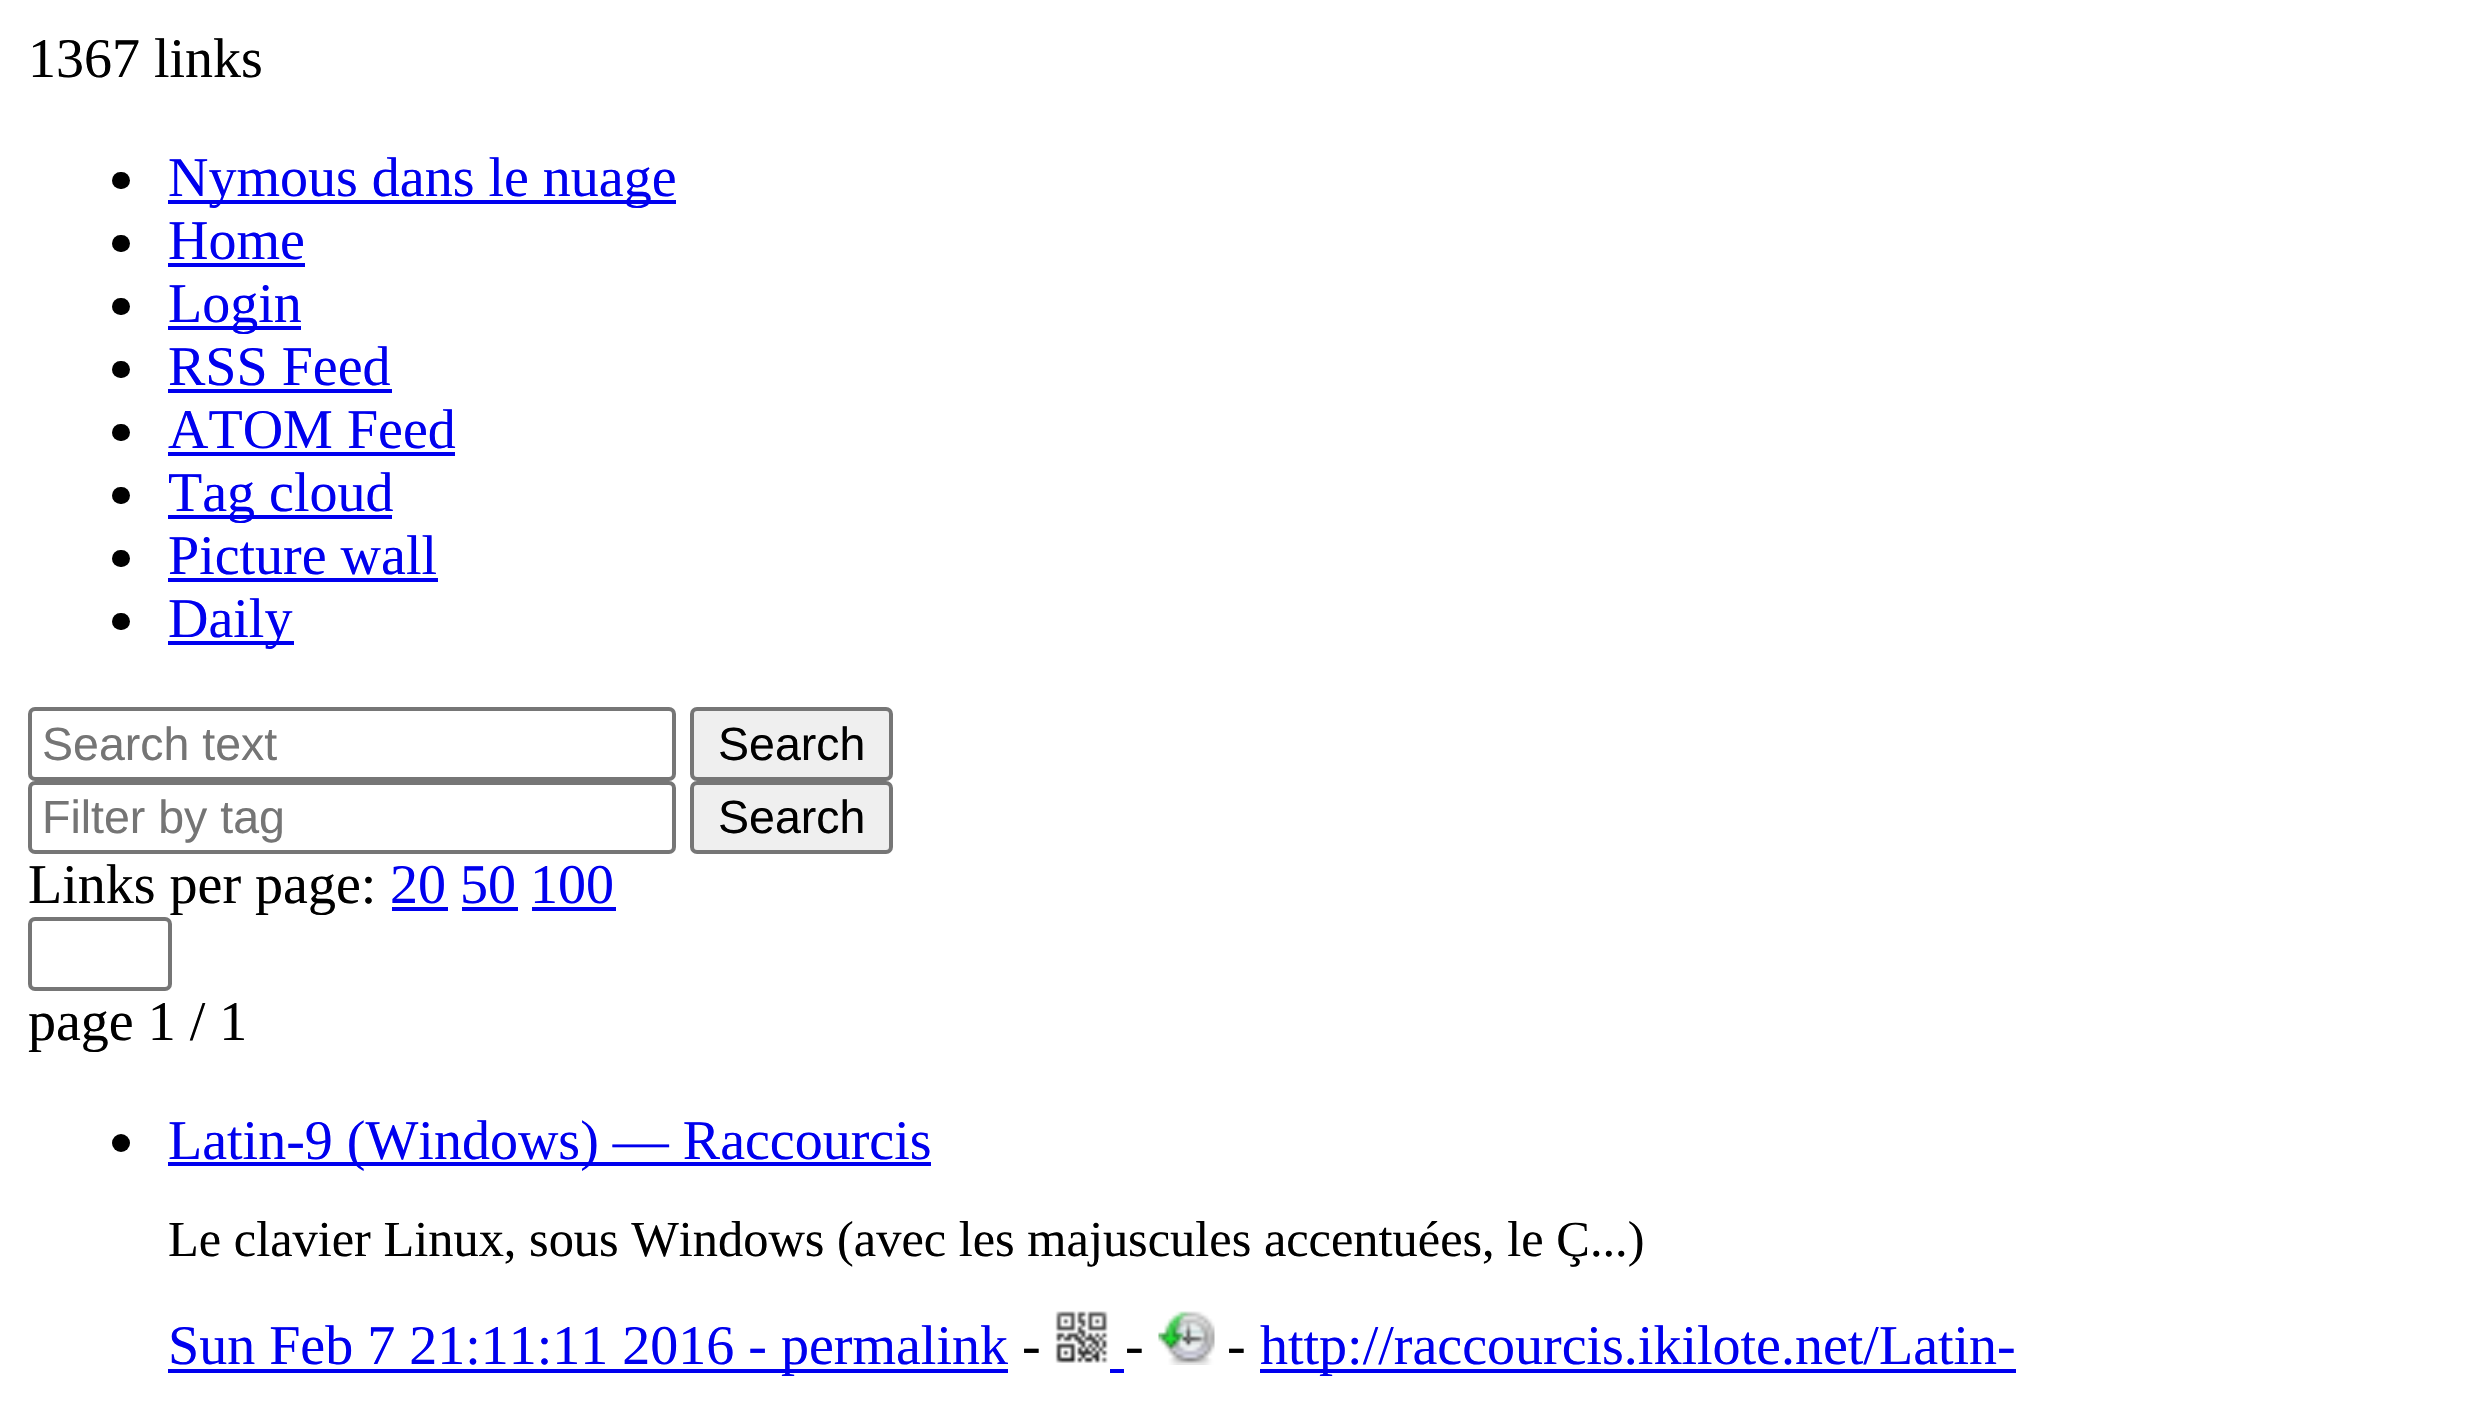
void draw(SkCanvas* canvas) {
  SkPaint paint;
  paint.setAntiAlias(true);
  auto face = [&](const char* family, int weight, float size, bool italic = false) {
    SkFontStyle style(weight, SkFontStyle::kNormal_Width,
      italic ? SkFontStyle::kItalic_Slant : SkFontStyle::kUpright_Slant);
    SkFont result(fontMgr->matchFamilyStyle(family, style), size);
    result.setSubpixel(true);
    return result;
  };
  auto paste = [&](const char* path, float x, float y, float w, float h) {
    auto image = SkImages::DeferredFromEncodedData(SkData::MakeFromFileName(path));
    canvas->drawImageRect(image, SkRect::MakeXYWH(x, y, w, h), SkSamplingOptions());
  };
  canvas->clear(0xffffffff);
  paint.setColor(0xff000000);
  canvas->drawRoundRect(SkRect::MakeXYWH(112, 172, 18, 17), 8.5f, 8.5f, paint);
  paint.setColor(0xff0000ee);
  canvas->drawRect(SkRect::MakeXYWH(168, 200, 508, 4), paint);
  paint.setColor(0xff000000);
  canvas->drawRoundRect(SkRect::MakeXYWH(112, 235, 18, 17), 8.5f, 8.5f, paint);
  paint.setColor(0xff0000ee);
  canvas->drawRect(SkRect::MakeXYWH(168, 263, 137, 4), paint);
  paint.setColor(0xff000000);
  canvas->drawRoundRect(SkRect::MakeXYWH(112, 298, 18, 17), 8.5f, 8.5f, paint);
  paint.setColor(0xff0000ee);
  canvas->drawRect(SkRect::MakeXYWH(168, 326, 133, 4), paint);
  paint.setColor(0xff000000);
  canvas->drawRoundRect(SkRect::MakeXYWH(112, 361, 18, 17), 8.5f, 8.5f, paint);
  paint.setColor(0xff0000ee);
  canvas->drawRect(SkRect::MakeXYWH(168, 389, 224, 4), paint);
  paint.setColor(0xff000000);
  canvas->drawRoundRect(SkRect::MakeXYWH(112, 424, 18, 17), 8.5f, 8.5f, paint);
  paint.setColor(0xff0000ee);
  canvas->drawRect(SkRect::MakeXYWH(168, 452, 287, 4), paint);
  paint.setColor(0xff000000);
  canvas->drawRoundRect(SkRect::MakeXYWH(112, 487, 18, 17), 8.5f, 8.5f, paint);
  paint.setColor(0xff0000ee);
  canvas->drawRect(SkRect::MakeXYWH(168, 515, 224, 4), paint);
  paint.setColor(0xff000000);
  canvas->drawRoundRect(SkRect::MakeXYWH(112, 550, 18, 17), 8.5f, 8.5f, paint);
  paint.setColor(0xff0000ee);
  canvas->drawRect(SkRect::MakeXYWH(168, 578, 270, 4), paint);
  paint.setColor(0xff000000);
  canvas->drawRoundRect(SkRect::MakeXYWH(112, 613, 18, 17), 8.5f, 8.5f, paint);
  paint.setColor(0xff0000ee);
  canvas->drawRect(SkRect::MakeXYWH(168, 641, 126, 4), paint);
  paint.setStroke(true);
  paint.setStrokeWidth(4);
  paint.setColor(0xff767676);
  canvas->drawRoundRect(SkRect::MakeXYWH(30, 709, 644, 70), 5, 5, paint);
  paint.setStroke(false);
  paint.setColor(0xffefefef);
  canvas->drawRoundRect(SkRect::MakeXYWH(692, 709, 199, 70), 5, 5, paint);
  paint.setStroke(true);
  paint.setColor(0xff767676);
  canvas->drawRoundRect(SkRect::MakeXYWH(692, 709, 199, 70), 5, 5, paint);
  canvas->drawRoundRect(SkRect::MakeXYWH(30, 783, 644, 69), 5, 5, paint);
  paint.setStroke(false);
  paint.setColor(0xffefefef);
  canvas->drawRoundRect(SkRect::MakeXYWH(692, 783, 199, 69), 5, 5, paint);
  paint.setStroke(true);
  paint.setColor(0xff767676);
  canvas->drawRoundRect(SkRect::MakeXYWH(692, 783, 199, 69), 5, 5, paint);
  paint.setStroke(false);
  {
    const struct { float x, y, w, h; SkColor color; } items[] = {
      {392, 907, 56, 4, 0xff0000ee},
      {462, 907, 56, 4, 0xff0000ee},
      {532, 907, 84, 4, 0xff0000ee},
    };
    for (auto [x, y, w, h, color] : items) {
      paint.setColor(color);
      canvas->drawRect(SkRect::MakeXYWH(x, y, w, h), paint);
    }
  }
  paint.setStroke(true);
  paint.setColor(0xff767676);
  canvas->drawRoundRect(SkRect::MakeXYWH(30, 919, 140, 70), 5, 5, paint);
  paint.setStroke(false);
  paint.setColor(0xff000000);
  canvas->drawCircle(121, 1143, 9, paint);
  paint.setColor(0xff0000ee);
  canvas->drawRect(SkRect::MakeXYWH(168, 1162, 763, 4), paint);
  canvas->drawRect(SkRect::MakeXYWH(168, 1369, 840, 4), paint);
  paste("img/1.png", 1055, 1311, 53, 52);
  paste("img/2.png", 1158, 1311, 57, 54);
  canvas->drawRect(SkRect::MakeXYWH(1260, 1369, 756, 4), paint);
  canvas->drawRect(SkRect::MakeXYWH(1110, 1369, 14, 4), paint);
  auto f0 = face("Liberation Serif", 400, 56);
  paint.setColor(0xff000000);
  canvas->drawString("1367 links", 28, 77, f0, paint);
  paint.setColor(0xff0000ee);
  {
    const struct { const char* s; float x, y; } items[] = {
      {"Nymous dans le nuage", 168, 196},
      {"Home", 168, 259},
      {"Login", 168, 322},
      {"RSS Feed", 168, 385},
      {"ATOM Feed", 168, 448},
      {"Tag cloud", 168, 511},
      {"Picture wall", 168, 574},
      {"Daily", 168, 637},
    };
    for (auto [s, x, y] : items) {
      canvas->drawString(s, x, y, f0, paint);
    }
  }
  auto f1 = face("Liberation Sans", 400, 46.5f);
  paint.setColor(0xff757575);
  canvas->drawString("Search text", 42, 760, f1, paint);
  paint.setColor(0xff000000);
  canvas->drawString("Search", 718, 760, f1, paint);
  paint.setColor(0xff757575);
  canvas->drawString("Filter by tag", 42, 833, f1, paint);
  paint.setColor(0xff000000);
  canvas->drawString("Search", 718, 833, f1, paint);
  canvas->drawString("Links per page:", 28, 903, f0, paint);
  paint.setColor(0xff0000ee);
  canvas->drawString("20 50 100", 390, 903, f0, paint);
  paint.setColor(0xff000000);
  canvas->drawString("page 1 / 1", 28, 1040, f0, paint);
  paint.setColor(0xff0000ee);
  canvas->drawString("Latin-9 (Windows) — Raccourcis", 168, 1159, f0, paint);
  auto f2 = face("Liberation Serif", 400, 50.4f);
  paint.setColor(0xff000000);
  canvas->drawString("Le clavier Linux, sous Windows (avec les majuscules accentuées, le Ç...)", 168, 1256, f2, paint);
  paint.setColor(0xff0000ee);
  canvas->drawString("Sun Feb 7 21:11:11 2016 - permalink", 168, 1364, f0, paint);
  paint.setColor(0xff000000);
  {
    const struct { const char* s; float x, y; } items[] = {
      {"-", 1022, 1364},
      {"-", 1125, 1364},
      {"-", 1227, 1364},
    };
    for (auto [s, x, y] : items) {
      canvas->drawString(s, x, y, f0, paint);
    }
  }
  paint.setColor(0xff0000ee);
  canvas->drawString("http://raccourcis.ikilote.net/Latin-", 1260, 1364, f0, paint);
}
